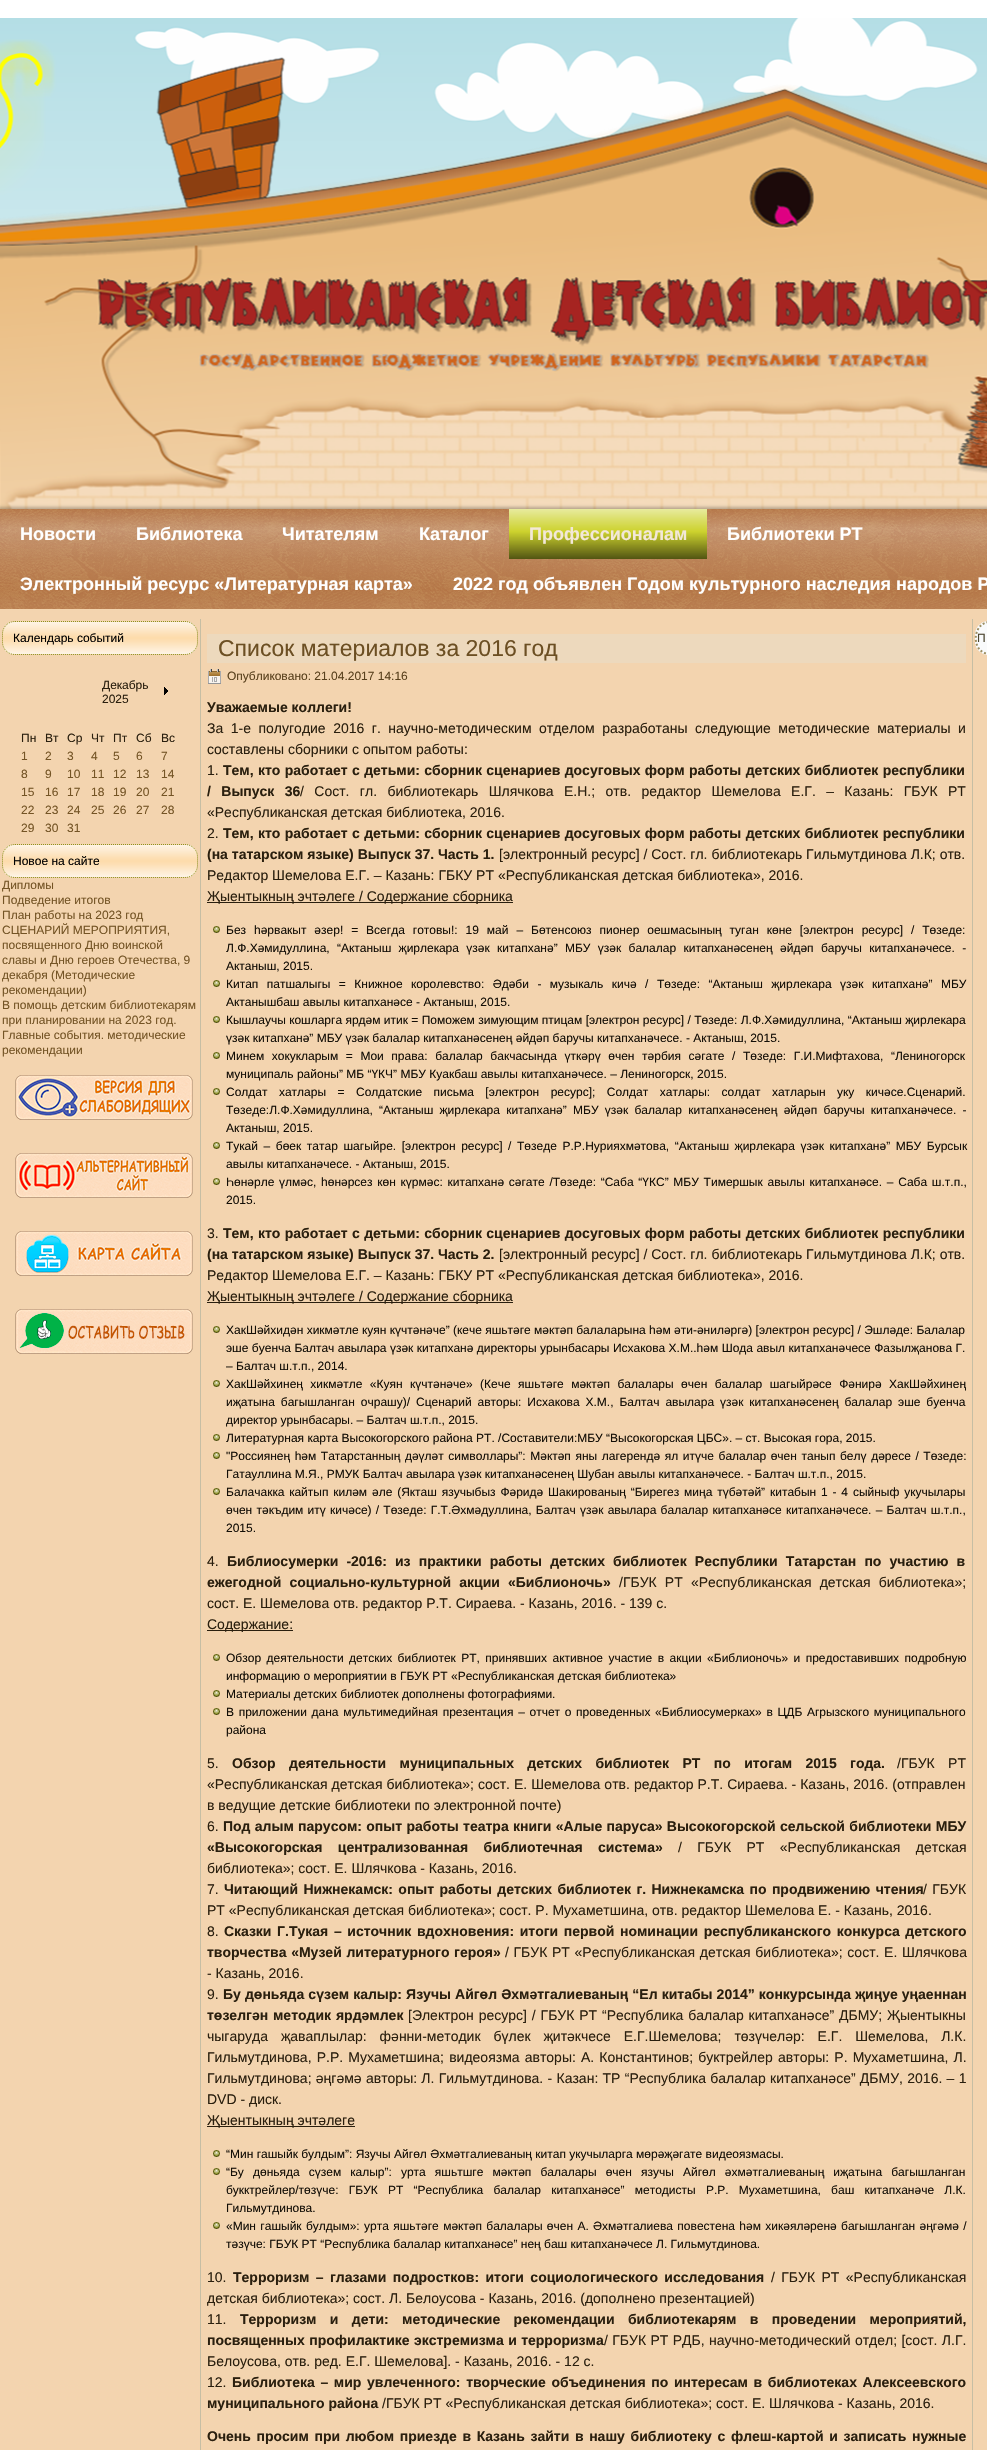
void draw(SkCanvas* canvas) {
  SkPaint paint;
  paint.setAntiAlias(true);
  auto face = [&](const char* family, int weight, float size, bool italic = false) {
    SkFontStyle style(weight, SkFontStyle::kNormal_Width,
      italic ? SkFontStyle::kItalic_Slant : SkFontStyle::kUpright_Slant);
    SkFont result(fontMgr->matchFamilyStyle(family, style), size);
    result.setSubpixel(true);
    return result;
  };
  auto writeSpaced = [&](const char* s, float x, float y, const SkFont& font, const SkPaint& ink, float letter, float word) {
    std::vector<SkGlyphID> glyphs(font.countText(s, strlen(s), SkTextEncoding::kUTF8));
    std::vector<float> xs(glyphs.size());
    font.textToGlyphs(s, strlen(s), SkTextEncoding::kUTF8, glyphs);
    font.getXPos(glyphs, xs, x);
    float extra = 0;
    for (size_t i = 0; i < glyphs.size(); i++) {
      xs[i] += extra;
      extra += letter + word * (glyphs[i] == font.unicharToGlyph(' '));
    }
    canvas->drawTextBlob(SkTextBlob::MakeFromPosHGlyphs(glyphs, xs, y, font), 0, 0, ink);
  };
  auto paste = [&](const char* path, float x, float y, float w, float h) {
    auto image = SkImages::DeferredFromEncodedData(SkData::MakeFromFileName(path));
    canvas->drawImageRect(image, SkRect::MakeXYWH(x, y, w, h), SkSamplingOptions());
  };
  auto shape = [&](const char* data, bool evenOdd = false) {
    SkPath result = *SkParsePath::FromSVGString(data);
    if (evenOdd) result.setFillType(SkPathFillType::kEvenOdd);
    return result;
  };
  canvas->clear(0xffffffff);
  paste("img/1.png", 0, 18, 987, 229);
  paste("img/2.png", 0, 57, 987, 452);
  paint.setColor(0x40000000);
  paint.setMaskFilter(SkMaskFilter::MakeBlur(kNormal_SkBlurStyle, 1.5f));
  canvas->drawRect(SkRect::MakeXYWH(-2, 507, 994, 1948), paint);
  paint.setMaskFilter(nullptr);
  paint.setColor(0xfff3d4af);
  canvas->drawRect(SkRect::MakeXYWH(0, 609, 987, 1841), paint);
  paste("img/3.png", 0, 509, 987, 100);
  {
    const SkColor colors[] = {0xffe4e78d, 0xffcdd22d, 0xff5a5d14};
    const float stops[] = {0, 0.45f, 1};
    const SkPoint ends[] = {{608, 509}, {608, 559}};
    paint.setShader(SkGradientShader::MakeLinear(ends, colors, stops, 3, SkTileMode::kClamp));
    paint.setAlpha(255);
  }
  canvas->drawRect(SkRect::MakeXYWH(509, 509, 198, 50), paint);
  {
    const SkColor colors[] = {0x52f1f2c3, 0x26ced332, 0x29262708};
    const float stops[] = {0, 0.45f, 1};
    const SkPoint ends[] = {{608, 509}, {608, 559}};
    paint.setShader(SkGradientShader::MakeLinear(ends, colors, stops, 3, SkTileMode::kClamp));
    paint.setAlpha(255);
  }
  canvas->drawRect(SkRect::MakeXYWH(509, 509, 198, 50), paint);
  paint.setShader(nullptr);
  paint.setColor(0xffc6bea4);
  canvas->drawRect(SkRect::MakeXYWH(200, 619, 1, 1831), paint);
  canvas->save();
  canvas->clipPath(shape("M15 621H185C192 621 198 627 198 634V642C198 649 192 655 185 655H15C8 655 2 649 2 642V634C2 627 8 621 15 621Z"), true);
  {
    const SkColor colors[] = {0xfffef4e6, 0xfffddfb4, 0xfffddbaa, 0xfffddfb4, 0xfffef4e6};
    const float stops[] = {0, 0.4f, 0.5f, 0.6f, 1};
    const SkPoint ends[] = {{100, 622}, {100, 654}};
    paint.setShader(SkGradientShader::MakeLinear(ends, colors, stops, 5, SkTileMode::kClamp));
    paint.setAlpha(255);
  }
  canvas->drawRect(SkRect::MakeXYWH(3, 622, 194, 32), paint);
  canvas->restore();
  paint.setStroke(true);
  paint.setStrokeWidth(1);
  paint.setShader(nullptr);
  paint.setColor(0xff8f931f);
  paint.setPathEffect(SkDashPathEffect::Make({{1, 1}}, 0));
  canvas->drawPath(shape("M15 621.5H185C192 621.5 197.5 627 197.5 634V642C197.5 649 192 654.5 185 654.5H15C8 654.5 2.5 649 2.5 642V634C2.5 627 8 621.5 15 621.5Z"), paint);
  paint.setPathEffect(nullptr);
  paste("img/4.png", 164, 687, 4, 8);
  canvas->save();
  canvas->clipPath(shape("M15 844H185C192 844 198 850 198 857V865C198 872 192 878 185 878H15C8 878 2 872 2 865V857C2 850 8 844 15 844Z"), true);
  paint.setStroke(false);
  {
    const SkColor colors[] = {0xfffef4e6, 0xfffddfb4, 0xfffddbaa, 0xfffddfb4, 0xfffef4e6};
    const float stops[] = {0, 0.4f, 0.5f, 0.6f, 1};
    const SkPoint ends[] = {{100, 845}, {100, 877}};
    paint.setShader(SkGradientShader::MakeLinear(ends, colors, stops, 5, SkTileMode::kClamp));
    paint.setAlpha(255);
  }
  canvas->drawRect(SkRect::MakeXYWH(3, 845, 194, 32), paint);
  canvas->restore();
  paint.setStroke(true);
  paint.setShader(nullptr);
  paint.setColor(0xff8f931f);
  paint.setPathEffect(SkDashPathEffect::Make({{1, 1}}, 0));
  canvas->drawPath(shape("M15 844.5H185C192 844.5 197.5 850 197.5 857V865C197.5 872 192 877.5 185 877.5H15C8 877.5 2.5 872 2.5 865V857C2.5 850 8 844.5 15 844.5Z"), paint);
  paint.setPathEffect(nullptr);
  paste("img/5.png", 15, 1075, 178, 45);
  paste("img/6.png", 15, 1153, 178, 45);
  paste("img/7.png", 15, 1231, 178, 45);
  paste("img/8.png", 15, 1309, 178, 45);
  paint.setStroke(false);
  paint.setColor(0xffc6bea4);
  canvas->drawRect(SkRect::MakeXYWH(972, 619, 1, 1831), paint);
  paint.setColor(0xfff9fafb);
  canvas->drawRoundRect(SkRect::MakeXYWH(975, 621, 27, 34), 15, 15, paint);
  paint.setStroke(true);
  paint.setStrokeWidth(2);
  paint.setColor(0xff9d8f62);
  paint.setPathEffect(SkDashPathEffect::Make({{2, 2}}, 0));
  canvas->drawPath(shape("M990 622L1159 622.5C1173 625 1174.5 647.5 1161.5 653L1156 654H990L984.5 653C970.5 647 974 622 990 622Z"), paint);
  paint.setPathEffect(nullptr);
  paint.setStroke(false);
  paint.setColor(0xffedd9bd);
  canvas->drawRect(SkRect::MakeXYWH(207, 634, 759, 29), paint);
  paste("img/9.png", 208, 669, 13, 15);
  paint.setColor(0xff2a1f0e);
  canvas->drawRect(SkRect::MakeXYWH(207, 902, 306, 1), paint);
  paste("img/10.png", 213, 926, 7, 7);
  paste("img/10.png", 213, 980, 7, 7);
  paste("img/10.png", 213, 1016, 7, 7);
  paste("img/10.png", 213, 1052, 7, 7);
  paste("img/10.png", 213, 1088, 7, 7);
  paste("img/10.png", 213, 1142, 7, 7);
  paste("img/10.png", 213, 1178, 7, 7);
  canvas->drawRect(SkRect::MakeXYWH(207, 1302, 306, 1), paint);
  paste("img/10.png", 213, 1326, 7, 7);
  paste("img/10.png", 213, 1380, 7, 7);
  paste("img/10.png", 213, 1434, 7, 7);
  paste("img/10.png", 213, 1452, 7, 7);
  paste("img/10.png", 213, 1488, 7, 7);
  canvas->drawRect(SkRect::MakeXYWH(207, 1630, 86, 1), paint);
  paste("img/10.png", 213, 1654, 7, 7);
  paste("img/10.png", 213, 1690, 7, 7);
  paste("img/10.png", 213, 1708, 7, 7);
  canvas->drawRect(SkRect::MakeXYWH(207, 2126, 148, 1), paint);
  paste("img/10.png", 213, 2150, 7, 7);
  paste("img/10.png", 213, 2168, 7, 7);
  paste("img/10.png", 213, 2222, 7, 7);
  auto f0 = face("Liberation Sans", 700, 18);
  paint.setColor(0xffffffff);
  {
    const struct { const char* s; float x, y; } items[] = {
      {"Новости", 20, 540},
      {"Библиотека", 136, 540},
      {"Читателям", 282, 540},
      {"Каталог", 419, 540},
    };
    for (auto [s, x, y] : items) {
      canvas->drawString(s, x, y, f0, paint);
    }
  }
  paint.setColor(0xfff3e8d8);
  canvas->drawString("Профессионалам", 529, 540, f0, paint);
  paint.setColor(0xffffffff);
  {
    const struct { const char* s; float x, y; } items[] = {
      {"Библиотеки РТ", 727, 540},
      {"Электронный ресурс «Литературная карта»", 20, 590},
      {"2022 год объявлен Годом культурного наследия народов Р", 453, 590},
    };
    for (auto [s, x, y] : items) {
      canvas->drawString(s, x, y, f0, paint);
    }
  }
  auto f1 = face("Liberation Sans", 400, 12);
  paint.setColor(0xff000000);
  canvas->drawString("Календарь событий", 13, 642, f1, paint);
  paint.setColor(0xff2a1f0e);
  {
    const struct { const char* s; float x, y; } items[] = {
      {"Декабрь", 102, 689},
      {"2025", 102, 703},
      {"Пн", 21, 742},
      {"Вт", 45, 742},
      {"Ср", 67, 742},
      {"Чт", 91, 742},
      {"Пт", 113, 742},
      {"Сб", 136, 742},
      {"Вс", 161, 742},
    };
    for (auto [s, x, y] : items) {
      canvas->drawString(s, x, y, f1, paint);
    }
  }
  paint.setColor(0xff745425);
  {
    const struct { const char* s; float x, y; } items[] = {
      {"1", 21, 760},
      {"2", 45, 760},
      {"3", 67, 760},
      {"4", 91, 760},
      {"5", 113, 760},
      {"6", 136, 760},
      {"7", 161, 760},
      {"8", 21, 778},
      {"9", 45, 778},
      {"10", 67, 778},
      {"11", 91, 778},
      {"12", 113, 778},
      {"13", 136, 778},
      {"14", 161, 778},
      {"15", 21, 796},
      {"16", 45, 796},
      {"17", 67, 796},
      {"18", 91, 796},
      {"19", 113, 796},
      {"20", 136, 796},
      {"21", 161, 796},
      {"22", 21, 814},
      {"23", 45, 814},
      {"24", 67, 814},
      {"25", 91, 814},
      {"26", 113, 814},
      {"27", 136, 814},
      {"28", 161, 814},
      {"29", 21, 832},
      {"30", 45, 832},
      {"31", 67, 832},
    };
    for (auto [s, x, y] : items) {
      canvas->drawString(s, x, y, f1, paint);
    }
  }
  paint.setColor(0xff000000);
  canvas->drawString("Новое на сайте", 13, 865, f1, paint);
  paint.setColor(0xff745425);
  {
    const struct { const char* s; float x, y; } items[] = {
      {"Дипломы", 2, 889},
      {"Подведение итогов", 2, 904},
      {"План работы на 2023 год", 2, 919},
      {"СЦЕНАРИЙ МЕРОПРИЯТИЯ,", 2, 934},
      {"посвященного Дню воинской", 2, 949},
      {"славы и Дню героев Отечества, 9", 2, 964},
      {"декабря (Методические", 2, 979},
      {"рекомендации)", 2, 994},
      {"В помощь детским библиотекарям", 2, 1009},
      {"при планировании на 2023 год.", 2, 1024},
      {"Главные события. методические", 2, 1039},
      {"рекомендации", 2, 1054},
    };
    for (auto [s, x, y] : items) {
      canvas->drawString(s, x, y, f1, paint);
    }
  }
  paint.setColor(0xff4b452f);
  canvas->drawString("П", 977, 642, f1, paint);
  auto f2 = face("Liberation Sans", 400, 23);
  paint.setColor(0xff6c4f23);
  canvas->drawString("Список материалов за 2016 год", 218, 656, f2, paint);
  paint.setColor(0xff59411d);
  canvas->drawString("Опубликовано: 21.04.2017 14:16", 227, 680, f1, paint);
  auto f3 = face("Liberation Sans", 700, 14);
  paint.setColor(0xff2a1f0e);
  canvas->drawString("Уважаемые коллеги!", 207, 712, f3, paint);
  auto f4 = face("Liberation Sans", 400, 14);
  writeSpaced("За 1-е полугодие 2016 г. научно-методическим отделом разработаны следующие методические материалы и", 207, 733, f4, paint, 0, 3.6f);
  canvas->drawString("составлены сборники с опытом работы:", 207, 754, f4, paint);
  canvas->drawString("1.", 207, 775, f4, paint);
  writeSpaced("Тем, кто работает с детьми: сборник сценариев досуговых форм работы детских библиотек республики", 223, 775, f3, paint, 0, 0.5f);
  writeSpaced("/ Выпуск 36", 207, 796, f3, paint, 0, 6.5f);
  writeSpaced("/ Сост. гл. библиотекарь Шлячкова Е.Н.; отв. редактор Шемелова Е.Г. – Казань: ГБУК РТ", 300, 796, f4, paint, 0, 6.5f);
  canvas->drawString("«Республиканская детская библиотека, 2016.", 207, 817, f4, paint);
  canvas->drawString("2.", 207, 838, f4, paint);
  writeSpaced("Тем, кто работает с детьми: сборник сценариев досуговых форм работы детских библиотек республики", 223, 838, f3, paint, 0, 0.5f);
  canvas->drawString("(на татарском языке) Выпуск 37. Часть 1.", 207, 859, f3, paint);
  {
    const struct { const char* s; float x, y; } items[] = {
      {"[электронный ресурс] / Сост. гл. библиотекарь Гильмутдинова Л.К; отв.", 499, 859},
      {"Редактор Шемелова Е.Г. – Казань: ГБКУ РТ «Республиканская детская библиотека», 2016.", 207, 880},
      {"Җыентыкның эчтәлеге / Содержание сборника", 207, 901},
    };
    for (auto [s, x, y] : items) {
      canvas->drawString(s, x, y, f4, paint);
    }
  }
  paint.setColor(0xff130e06);
  writeSpaced("Без һәрвакыт әзер! = Всегда готовы!: 19 май – Бөтенсоюз пионер оешмасының туган көне [электрон ресурс] / Төзеде:", 226, 934, f1, paint, 0, 4.6f);
  writeSpaced("Л.Ф.Хәмидуллина, “Актаныш җирлекара үзәк китапханә” МБУ үзәк балалар китапханәсенең әйдәп баручы китапханәчесе. -", 226, 952, f1, paint, 0, 4);
  canvas->drawString("Актаныш, 2015.", 226, 970, f1, paint);
  writeSpaced("Китап патшалыгы = Книжное королевство: Әдәби - музыкаль кичә / Төзеде: “Актаныш җирлекара үзәк китапханә” МБУ", 226, 988, f1, paint, 0, 5.1f);
  {
    const struct { const char* s; float x, y; } items[] = {
      {"Актанышбаш авылы китапханәсе - Актаныш, 2015.", 226, 1006},
      {"Кышлаучы кошларга ярдәм итик = Поможем зимующим птицам [электрон ресурс] / Төзеде: Л.Ф.Хәмидуллина, “Актаныш җирлекара", 226, 1024},
      {"үзәк китапханә” МБУ үзәк балалар китапханәсенең әйдәп баручы китапханәчесе. - Актаныш, 2015.", 226, 1042},
    };
    for (auto [s, x, y] : items) {
      canvas->drawString(s, x, y, f1, paint);
    }
  }
  writeSpaced("Минем хокукларым = Мои права: балалар бакчасында үткәрү өчен тәрбия сәгате / Төзеде: Г.И.Мифтахова, “Лениногорск", 226, 1060, f1, paint, 0, 4.25f);
  canvas->drawString("муниципаль районы” МБ “ҮКЧ” МБУ Куакбаш авылы китапханәчесе. – Лениногорск, 2015.", 226, 1078, f1, paint);
  writeSpaced("Солдат хатлары = Солдатские письма [электрон ресурс]; Солдат хатлары: солдат хатларын уку кичәсе.Сценарий.", 226, 1096, f1, paint, 0, 8.1f);
  writeSpaced("Төзеде:Л.Ф.Хәмидуллина, “Актаныш җирлекара китапханә” МБУ үзәк балалар китапханәсенең әйдәп баручы китапханәчесе. -", 226, 1114, f1, paint, 0, 2.9f);
  canvas->drawString("Актаныш, 2015.", 226, 1132, f1, paint);
  writeSpaced("Тукай – бөек татар шагыйре. [электрон ресурс] / Төзеде Р.Р.Нурияхмәтова, “Актаныш җирлекара үзәк китапханә” МБУ Бурсык", 226, 1150, f1, paint, 0, 2.25f);
  canvas->drawString("авылы китапханәчесе. - Актаныш, 2015.", 226, 1168, f1, paint);
  writeSpaced("Һөнәрле үлмәс, һөнәрсез көн күрмәс: китапханә сәгате /Төзеде: “Саба “ҮКС” МБУ Тимершык авылы китапханәсе. – Саба ш.т.п.,", 226, 1186, f1, paint, 0, 1.4f);
  canvas->drawString("2015.", 226, 1204, f1, paint);
  paint.setColor(0xff2a1f0e);
  canvas->drawString("3.", 207, 1238, f4, paint);
  writeSpaced("Тем, кто работает с детьми: сборник сценариев досуговых форм работы детских библиотек республики", 223, 1238, f3, paint, 0, 0.5f);
  canvas->drawString("(на татарском языке) Выпуск 37. Часть 2.", 207, 1259, f3, paint);
  {
    const struct { const char* s; float x, y; } items[] = {
      {"[электронный ресурс] / Сост. гл. библиотекарь Гильмутдинова Л.К; отв.", 499, 1259},
      {"Редактор Шемелова Е.Г. – Казань: ГБКУ РТ «Республиканская детская библиотека», 2016.", 207, 1280},
      {"Җыентыкның эчтәлеге / Содержание сборника", 207, 1301},
    };
    for (auto [s, x, y] : items) {
      canvas->drawString(s, x, y, f4, paint);
    }
  }
  paint.setColor(0xff130e06);
  canvas->drawString("ХакШәйхидән хикмәтле куян күчтәнәче” (кече яшьтәге мәктәп балаларына һәм әти-әниләргә) [электрон ресурс] / Эшләде: Балалар", 226, 1334, f1, paint);
  writeSpaced("эше буенча Балтач авылара үзәк китапханә директоры урынбасары Исхакова Х.М..һәм Шода авыл китапханәчесе Фазылҗанова Г.", 226, 1352, f1, paint, 0, 0.1f);
  canvas->drawString("– Балтач ш.т.п., 2014.", 226, 1370, f1, paint);
  writeSpaced("ХакШәйхинең хикмәтле «Куян күчтәнәче» (Кече яшьтәге мәктәп балалары өчен балалар шагыйрәсе Фәнирә ХакШәйхинең", 226, 1388, f1, paint, 0, 4.1f);
  writeSpaced("иҗатына багышланган очрашу)/ Сценарий авторы: Исхакова Х.М., Балтач авылара үзәк китапханәсенең балалар эше буенча", 226, 1406, f1, paint, 0, 2.6f);
  canvas->drawString("директор урынбасары. – Балтач ш.т.п., 2015.", 226, 1424, f1, paint);
  canvas->drawString("Литературная карта Высокогорского района РТ. /Составители:МБУ “Высокогорская ЦБС». – ст. Высокая гора, 2015.", 226, 1442, f1, paint);
  writeSpaced("\"Россиянең һәм Татарстанның дәүләт символлары”: Мәктәп яны лагерендә ял итүче балалар өчен танып белү дәресе / Төзеде:", 226, 1460, f1, paint, 0, 1.25f);
  canvas->drawString("Гатауллина М.Я., РМУК Балтач авылара үзәк китапханәсенең Шубан авылы китапханәчесе. - Балтач ш.т.п., 2015.", 226, 1478, f1, paint);
  writeSpaced("Балачакка кайтып киләм әле (Якташ язучыбыз Фәридә Шакированың “Бирегез миңа түбәтәй” китабын 1 - 4 сыйныф укучылары", 226, 1496, f1, paint, 0, 1.5f);
  writeSpaced("өчен тәкъдим итү кичәсе) / Төзеде: Г.Т.Әхмәдуллина, Балтач үзәк авылара балалар китапханәсе китапханәчесе. – Балтач ш.т.п.,", 226, 1514, f1, paint, 0, 0.9f);
  canvas->drawString("2015.", 226, 1532, f1, paint);
  paint.setColor(0xff2a1f0e);
  canvas->drawString("4.", 207, 1566, f4, paint);
  writeSpaced("Библиосумерки -2016: из практики работы детских библиотек Республики Татарстан по участию в", 227, 1566, f3, paint, 0, 4.25f);
  writeSpaced("ежегодной социально-культурной акции «Библионочь»", 207, 1587, f3, paint, 0, 4.25f);
  writeSpaced("/ГБУК РТ «Республиканская детская библиотека»;", 619, 1587, f4, paint, 0, 4.25f);
  canvas->drawString("сост. Е. Шемелова отв. редактор Р.Т. Сираева. - Казань, 2016. - 139 с.", 207, 1608, f4, paint);
  canvas->drawString("Содержание:", 207, 1629, f4, paint);
  paint.setColor(0xff130e06);
  writeSpaced("Обзор деятельности детских библиотек РТ, принявших активное участие в акции «Библионочь» и предоставивших подробную", 226, 1662, f1, paint, 0, 2.1f);
  canvas->drawString("информацию о мероприятии в ГБУК РТ «Республиканская детская библиотека»", 226, 1680, f1, paint);
  canvas->drawString("Материалы детских библиотек дополнены фотографиями.", 226, 1698, f1, paint);
  writeSpaced("В приложении дана мультимедийная презентация – отчет о проведенных «Библиосумерках» в ЦДБ Агрызского муниципального", 226, 1716, f1, paint, 0, 1.3f);
  canvas->drawString("района", 226, 1734, f1, paint);
  paint.setColor(0xff2a1f0e);
  canvas->drawString("5.", 207, 1768, f4, paint);
  writeSpaced("Обзор деятельности муниципальных детских библиотек РТ по итогам 2015 года.", 232, 1768, f3, paint, 0, 9.5f);
  writeSpaced("/ГБУК РТ", 897, 1768, f4, paint, 0, 9.5f);
  writeSpaced("«Республиканская детская библиотека»; сост. Е. Шемелова отв. редактор Р.Т. Сираева. - Казань, 2016. (отправлен", 207, 1789, f4, paint, 0, 0.1f);
  canvas->drawString("в ведущие детские библиотеки по электронной почте)", 207, 1810, f4, paint);
  canvas->drawString("6.", 207, 1831, f4, paint);
  writeSpaced("Под алым парусом: опыт работы театра книги «Алые паруса» Высокогорской сельской библиотеки МБУ", 223, 1831, f3, paint, 0, 0.4f);
  writeSpaced("«Высокогорская централизованная библиотечная система»", 207, 1852, f3, paint, 0, 11.5f);
  writeSpaced("/ ГБУК РТ «Республиканская детская", 678, 1852, f4, paint, 0, 11.5f);
  canvas->drawString("библиотека»; сост. Е. Шлячкова - Казань, 2016.", 207, 1873, f4, paint);
  canvas->drawString("7.", 207, 1894, f4, paint);
  writeSpaced("Читающий Нижнекамск: опыт работы детских библиотек г. Нижнекамска по продвижению чтения", 224, 1894, f3, paint, 0, 1.5f);
  writeSpaced("/ ГБУК", 923, 1894, f4, paint, 0, 1.5f);
  canvas->drawString("РТ «Республиканская детская библиотека»; сост. Р. Мухаметшина, отв. редактор Шемелова Е. - Казань, 2016.", 207, 1915, f4, paint);
  canvas->drawString("8.", 207, 1936, f4, paint);
  writeSpaced("Сказки Г.Тукая – источник вдохновения: итоги первой номинации республиканского конкурса детского", 224, 1936, f3, paint, 0, 1.75f);
  writeSpaced("творчества «Музей литературного героя»", 207, 1957, f3, paint, 0, 0.75f);
  writeSpaced("/ ГБУК РТ «Республиканская детская библиотека»; сост. Е. Шлячкова", 505, 1957, f4, paint, 0, 0.75f);
  canvas->drawString("- Казань, 2016.", 207, 1978, f4, paint);
  canvas->drawString("9.", 207, 1999, f4, paint);
  writeSpaced("Бу дөньяда сүзем калыр: Язучы Айгөл Әхмәтгалиеваның “Ел китабы 2014” конкурсында җиңуе уңаеннан", 223, 1999, f3, paint, 0, 0.2f);
  writeSpaced("төзелгән методик ярдәмлек", 207, 2020, f3, paint, 0, 1);
  writeSpaced("[Электрон ресурс] / ГБУК РТ “Республика балалар китапханәсе” ДБМУ; Җыентыкны", 408, 2020, f4, paint, 0, 1);
  writeSpaced("чыгаруда җаваплылар: фәнни-методик бүлек җитәкчесе Е.Г.Шемелова; төзүчеләр: Е.Г. Шемелова, Л.К.", 207, 2041, f4, paint, 0, 9);
  writeSpaced("Гильмутдинова, Р.Р. Мухаметшина; видеоязма авторы: А. Константинов; буктрейлер авторы: Р. Мухаметшина, Л.", 207, 2062, f4, paint, 0, 1.25f);
  writeSpaced("Гильмутдинова; әңгәмә авторы: Л. Гильмутдинова. - Казан: ТР “Республика балалар китапханәсе” ДБМУ, 2016. – 1", 207, 2083, f4, paint, 0, 0.4f);
  canvas->drawString("DVD - диск.", 207, 2104, f4, paint);
  canvas->drawString("Җыентыкның эчтәлеге", 207, 2125, f4, paint);
  paint.setColor(0xff130e06);
  canvas->drawString("“Мин гашыйк булдым”: Язучы Айгөл Әхмәтгалиеваның китап укучыларга мөрәҗәгате видеоязмасы.", 226, 2158, f1, paint);
  writeSpaced("“Бу дөньяда сүзем калыр”: урта яшьтшге мәктәп балалары өчен язучы Айгөл әхмәтгалиеваның иҗатына багышланган", 226, 2176, f1, paint, 0, 5.75f);
  writeSpaced("букктрейлер/төзүче: ГБУК РТ “Республика балалар китапханәсе” методисты Р.Р. Мухаметшина, баш китапханәче Л.К.", 226, 2194, f1, paint, 0, 6.9f);
  canvas->drawString("Гильмутдинова.", 226, 2212, f1, paint);
  writeSpaced("«Мин гашыйк булдым»: урта яшьтәге мәктәп балалары өчен А. Әхмәтгалиева повестена һәм хикәяләренә багышланган әңгәмә /", 226, 2230, f1, paint, 0, 1);
  canvas->drawString("тәзүче: ГБУК РТ “Республика балалар китапханәсе” нең баш китапханәчесе Л. Гильмутдинова.", 226, 2248, f1, paint);
  paint.setColor(0xff2a1f0e);
  canvas->drawString("10.", 207, 2282, f4, paint);
  writeSpaced("Терроризм – глазами подростков: итоги социологического исследования", 233, 2282, f3, paint, 0, 2.5f);
  writeSpaced("/ ГБУК РТ «Республиканская", 771, 2282, f4, paint, 0, 2.5f);
  canvas->drawString("детская библиотека»; сост. Л. Белоусова - Казань, 2016. (дополнено презентацией)", 207, 2303, f4, paint);
  canvas->drawString("11.", 207, 2324, f4, paint);
  writeSpaced("Терроризм и дети: методические рекомендации библиотекарям в проведении мероприятий,", 240, 2324, f3, paint, 0, 9.5f);
  writeSpaced("посвященных профилактике экстремизма и терроризма", 207, 2345, f3, paint, 0, 0.5f);
  writeSpaced("/ ГБУК РТ РДБ, научно-методический отдел; [сост. Л.Г.", 604, 2345, f4, paint, 0, 0.5f);
  canvas->drawString("Белоусова, отв. ред. Е.Г. Шемелова]. - Казань, 2016. - 12 с.", 207, 2366, f4, paint);
  canvas->drawString("12.", 207, 2387, f4, paint);
  writeSpaced("Библиотека – мир увлеченного: творческие объединения по интересам в библиотеках Алексеевского", 232, 2387, f3, paint, 0, 1.75f);
  canvas->drawString("муниципального района", 207, 2408, f3, paint);
  canvas->drawString("/ГБУК РТ «Республиканская детская библиотека»; сост. Е. Шлячкова - Казань, 2016.", 382, 2408, f4, paint);
  writeSpaced("Очень просим при любом приезде в Казань зайти в нашу библиотеку с флеш-картой и записать нужные", 207, 2441, f3, paint, 0, 1.75f);
}
